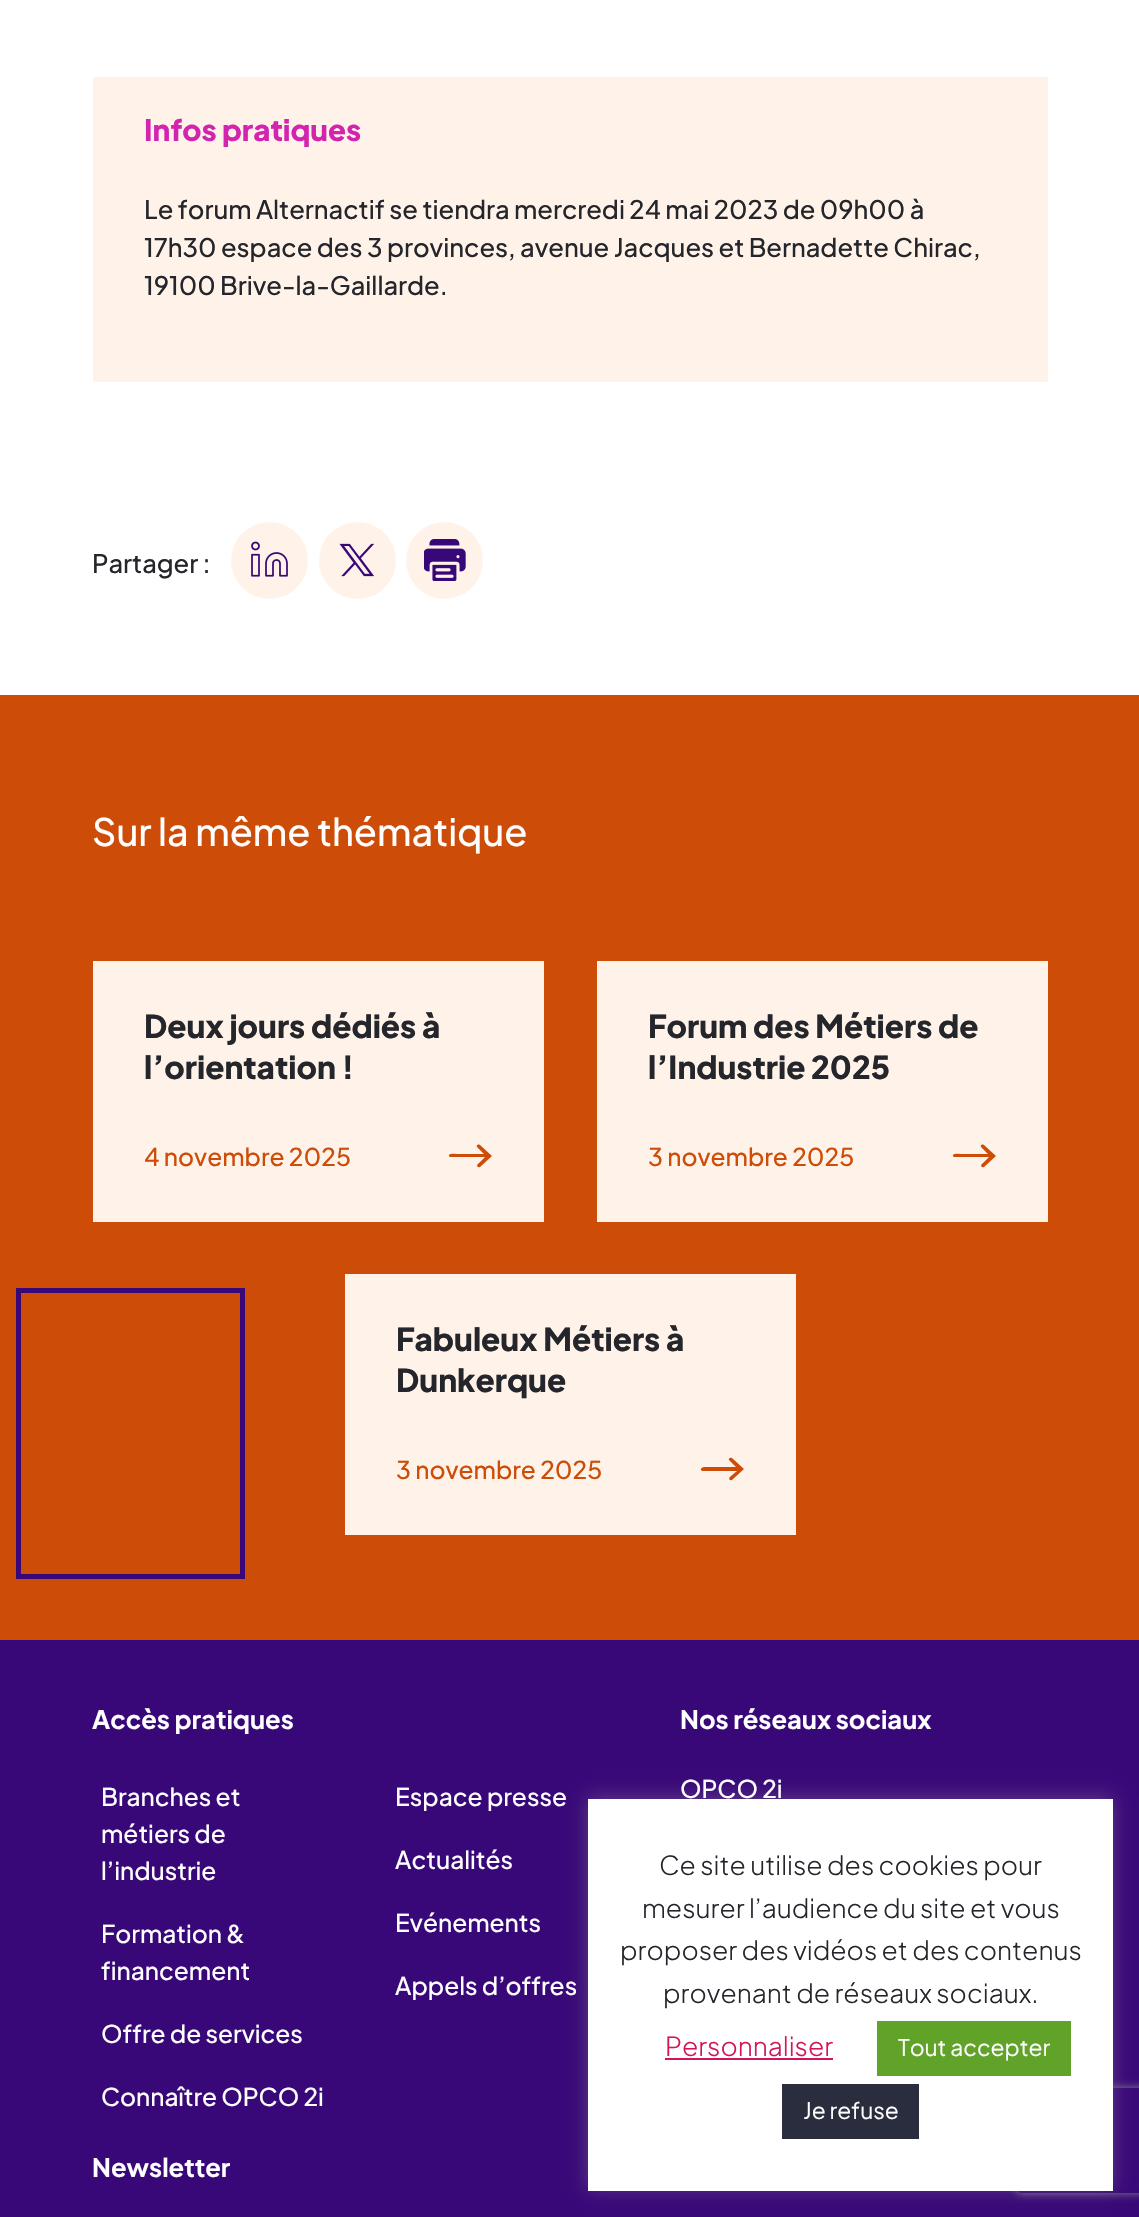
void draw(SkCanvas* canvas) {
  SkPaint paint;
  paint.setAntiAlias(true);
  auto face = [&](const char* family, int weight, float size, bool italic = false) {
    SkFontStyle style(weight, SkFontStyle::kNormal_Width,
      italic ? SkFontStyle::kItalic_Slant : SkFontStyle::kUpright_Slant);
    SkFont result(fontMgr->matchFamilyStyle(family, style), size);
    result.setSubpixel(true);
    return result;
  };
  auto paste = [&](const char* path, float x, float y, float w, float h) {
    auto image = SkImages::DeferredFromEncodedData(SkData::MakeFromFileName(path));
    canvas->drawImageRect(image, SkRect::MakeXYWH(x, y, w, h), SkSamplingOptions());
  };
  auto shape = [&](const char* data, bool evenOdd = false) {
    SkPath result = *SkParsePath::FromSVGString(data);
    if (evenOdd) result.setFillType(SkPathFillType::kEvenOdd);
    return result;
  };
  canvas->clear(0xffffffff);
  paint.setColor(0xfffff3e9);
  canvas->drawRect(SkRect::MakeXYWH(93, 77, 955, 305), paint);
  canvas->drawCircle(269.5f, 560.5f, 38.5f, paint);
  paste("img/1.png", 251, 541, 37, 36);
  canvas->drawCircle(357.5f, 560.5f, 38.5f, paint);
  paste("img/2.png", 339, 543, 35, 34);
  canvas->drawCircle(444.5f, 560.5f, 38.5f, paint);
  paste("img/3.png", 424, 539, 42, 42);
  paint.setColor(0xffcd4d08);
  canvas->drawRect(SkRect::MakeXYWH(0, 695, 1139, 945), paint);
  paint.setStroke(true);
  paint.setStrokeWidth(5);
  paint.setColor(0xff390878);
  canvas->drawRect(SkRect::MakeXYWH(18.5f, 1290.5f, 224, 286), paint);
  paint.setStroke(false);
  paint.setColor(0xfffff3e9);
  canvas->drawRect(SkRect::MakeXYWH(93, 961, 451, 261), paint);
  paint.setColor(0xffcd4d08);
  canvas->drawPath(shape("M480 1145C478 1144 476 1145 477 1147L484 1154H456C456 1154 448 1153 449 1156L450 1157H485L479 1163C476 1165 477 1168 480 1167L492 1156Z"), paint);
  paint.setColor(0xfffff3e9);
  canvas->drawRect(SkRect::MakeXYWH(597, 961, 451, 261), paint);
  paint.setColor(0xffcd4d08);
  canvas->drawPath(shape("M984 1145C982 1144 980 1145 981 1147L988 1154H960C960 1154 952 1153 953 1156L954 1157H989L983 1163C980 1165 981 1168 984 1167L996 1156Z"), paint);
  paint.setColor(0xfffff3e9);
  canvas->drawRect(SkRect::MakeXYWH(345, 1274, 451, 261), paint);
  paint.setColor(0xffcd4d08);
  canvas->drawPath(shape("M732 1458C730 1457 728 1459 729 1460L736 1467H708C708 1467 700 1466 701 1470L702 1471H737L731 1476C728 1478 729 1481 732 1480L744 1469Z"), paint);
  paint.setColor(0xff390878);
  canvas->drawRect(SkRect::MakeXYWH(0, 1640, 1139, 577), paint);
  paint.setColor(0x4dacabab);
  paint.setMaskFilter(SkMaskFilter::MakeBlur(kNormal_SkBlurStyle, 9));
  canvas->drawRect(SkRect::MakeXYWH(588, 1797, 525, 392), paint);
  paint.setMaskFilter(nullptr);
  canvas->save();
  canvas->clipPath(shape("M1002 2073H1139V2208H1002ZM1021 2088H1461C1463 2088 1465 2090 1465 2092V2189C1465 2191 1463 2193 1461 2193H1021C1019 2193 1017 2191 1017 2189V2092C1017 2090 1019 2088 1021 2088Z", true), true);
  paint.setColor(0xff808080);
  paint.setMaskFilter(SkMaskFilter::MakeBlur(kNormal_SkBlurStyle, 4.5f));
  canvas->drawRoundRect(SkRect::MakeXYWH(1017, 2088, 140, 105), 4, 4, paint);
  paint.setMaskFilter(nullptr);
  canvas->restore();
  {
    const struct { float x, y, w, h; SkColor color; } items[] = {
      {588, 1799, 525, 392, 0xffffffff},
      {665, 2058, 168, 2, 0xffd3145b},
      {877, 2021, 194, 55, 0xff61a229},
      {782, 2084, 137, 55, 0xff292d3d},
    };
    for (auto [x, y, w, h, color] : items) {
      paint.setColor(color);
      canvas->drawRect(SkRect::MakeXYWH(x, y, w, h), paint);
    }
  }
  auto f0 = face("Plus Jakarta Sans", 800, 29.5f);
  paint.setColor(0xffd324b0);
  canvas->drawString("Infos pratiques", 144, 141, f0, paint);
  auto f1 = face("Plus Jakarta Sans", 500, 25.5f);
  paint.setColor(0xff25262c);
  {
    const struct { const char* s; float x, y; } items[] = {
      {"Le forum Alternactif se tiendra mercredi 24 mai 2023 de 09h00 à", 144, 219},
      {"17h30 espace des 3 provinces, avenue Jacques et Bernadette Chirac,", 144, 257},
      {"19100 Brive-la-Gaillarde.", 144, 295},
      {"Partager :", 92, 573},
    };
    for (auto [s, x, y] : items) {
      canvas->drawString(s, x, y, f1, paint);
    }
  }
  auto f2 = face("Plus Jakarta Sans", 500, 37.75f);
  paint.setColor(0xffffffff);
  canvas->drawString("Sur la même thématique", 92, 846, f2, paint);
  auto f3 = face("Plus Jakarta Sans", 800, 31.5f);
  paint.setColor(0xff25262c);
  canvas->drawString("Deux jours dédiés à", 144, 1038, f3, paint);
  canvas->drawString("l’orientation !", 144, 1079, f3, paint);
  auto f4 = face("Plus Jakarta Sans", 500, 24.5f);
  paint.setColor(0xffcd4d08);
  canvas->drawString("4 novembre 2025", 144, 1166, f4, paint);
  paint.setColor(0xff25262c);
  canvas->drawString("Forum des Métiers de", 648, 1038, f3, paint);
  canvas->drawString("l’Industrie 2025", 648, 1079, f3, paint);
  paint.setColor(0xffcd4d08);
  canvas->drawString("3 novembre 2025", 648, 1166, f4, paint);
  paint.setColor(0xff25262c);
  canvas->drawString("Fabuleux Métiers à", 396, 1351, f3, paint);
  canvas->drawString("Dunkerque", 396, 1392, f3, paint);
  paint.setColor(0xffcd4d08);
  canvas->drawString("3 novembre 2025", 396, 1479, f4, paint);
  auto f5 = face("Plus Jakarta Sans", 700, 25.5f);
  paint.setColor(0xffffffff);
  canvas->drawString("Accès pratiques", 92, 1729, f5, paint);
  {
    const struct { const char* s; float x, y; } items[] = {
      {"Branches et", 101, 1806},
      {"métiers de", 101, 1843},
      {"l’industrie", 101, 1880},
      {"Formation &", 101, 1943},
      {"financement", 101, 1980},
      {"Offre de services", 101, 2043},
      {"Connaître OPCO 2i", 101, 2106},
      {"Espace presse", 395, 1806},
      {"Actualités", 395, 1869},
      {"Evénements", 395, 1932},
      {"Appels d’offres", 395, 1995},
    };
    for (auto [s, x, y] : items) {
      canvas->drawString(s, x, y, f4, paint);
    }
  }
  canvas->drawString("Nos réseaux sociaux", 680, 1729, f5, paint);
  canvas->drawString("OPCO 2i", 680, 1798, f4, paint);
  canvas->drawString("Newsletter", 92, 2177, f5, paint);
  auto f6 = face("Plus Jakarta Sans", 300, 26.25f);
  paint.setColor(0xff25262c);
  {
    const struct { const char* s; float x, y; } items[] = {
      {"Ce site utilise des cookies pour", 659, 1875},
      {"mesurer l’audience du site et vous", 642, 1918},
      {"proposer des vidéos et des contenus", 620, 1960},
      {"provenant de réseaux sociaux.", 663, 2003},
    };
    for (auto [s, x, y] : items) {
      canvas->drawString(s, x, y, f6, paint);
    }
  }
  paint.setColor(0xffd3145b);
  canvas->drawString("Personnaliser", 665, 2056, f6, paint);
  auto f7 = face("Plus Jakarta Sans", 400, 22.75f);
  paint.setColor(0xffffffff);
  canvas->drawString("Tout accepter", 898, 2056, f7, paint);
  canvas->drawString("Je refuse", 803, 2119, f7, paint);
}
